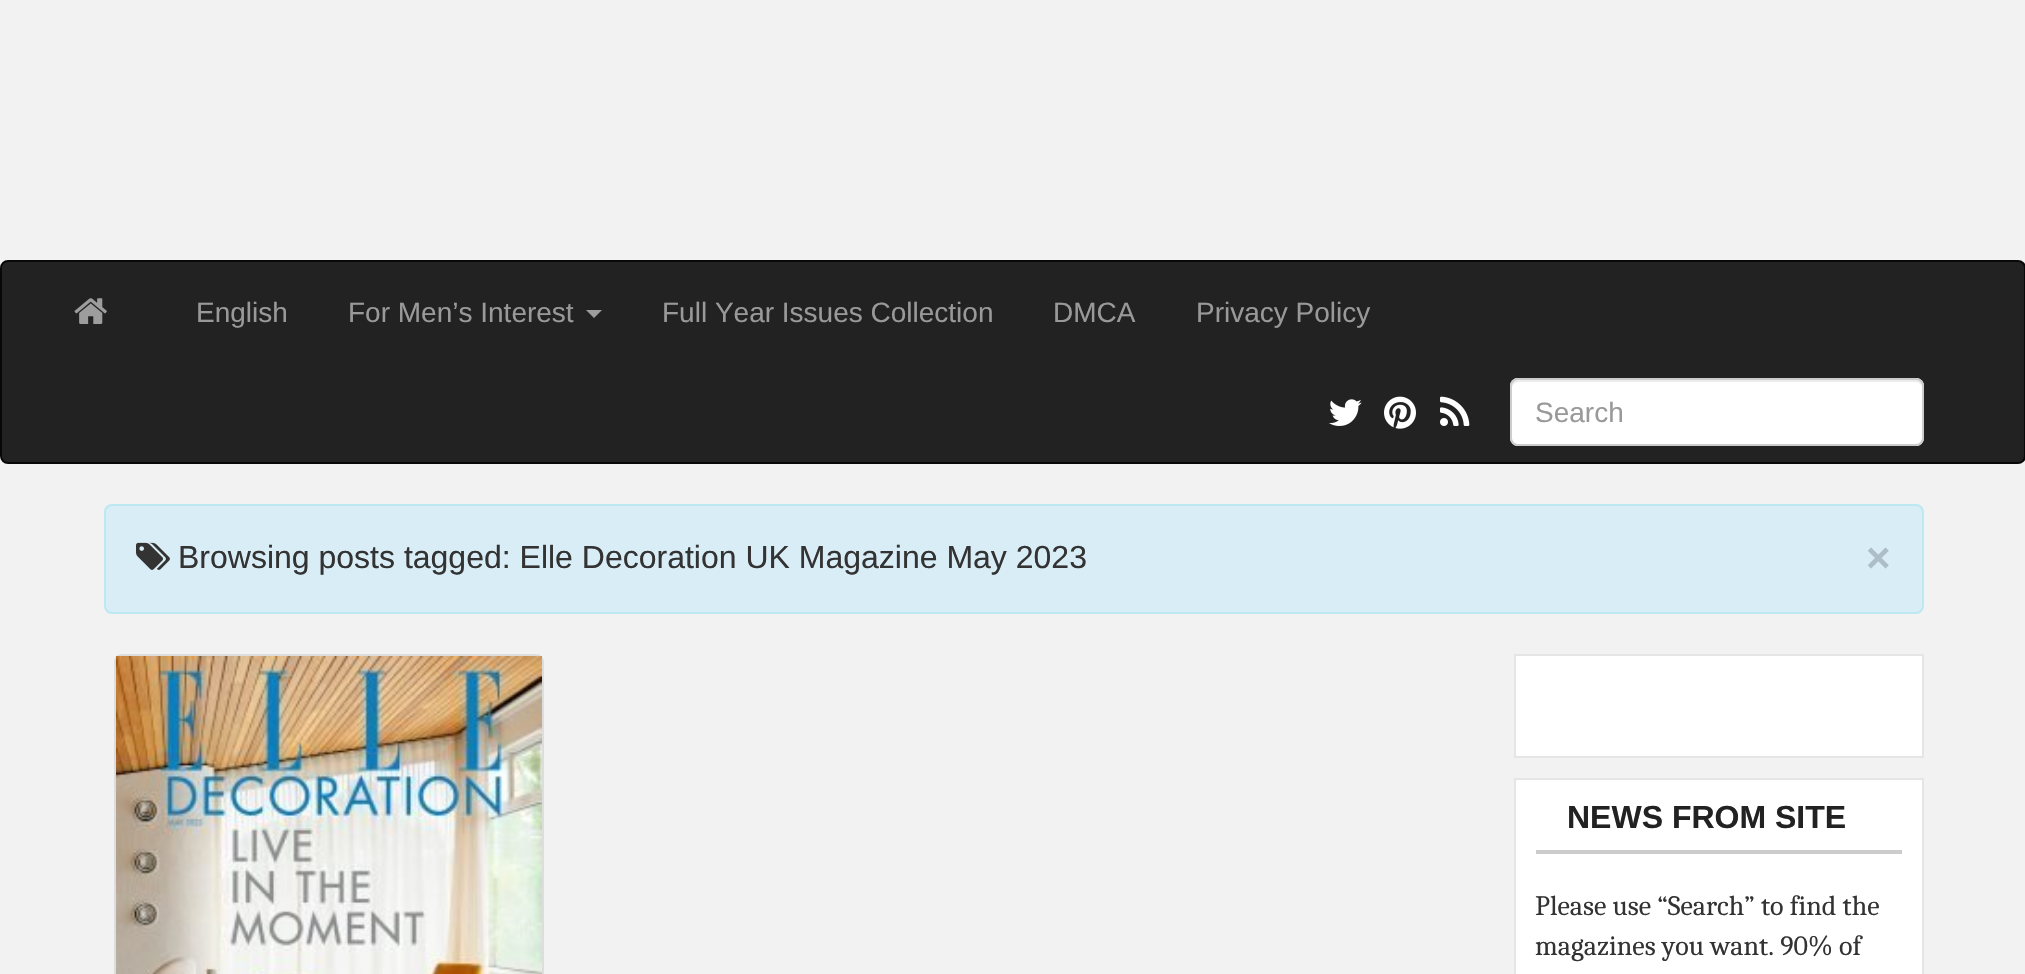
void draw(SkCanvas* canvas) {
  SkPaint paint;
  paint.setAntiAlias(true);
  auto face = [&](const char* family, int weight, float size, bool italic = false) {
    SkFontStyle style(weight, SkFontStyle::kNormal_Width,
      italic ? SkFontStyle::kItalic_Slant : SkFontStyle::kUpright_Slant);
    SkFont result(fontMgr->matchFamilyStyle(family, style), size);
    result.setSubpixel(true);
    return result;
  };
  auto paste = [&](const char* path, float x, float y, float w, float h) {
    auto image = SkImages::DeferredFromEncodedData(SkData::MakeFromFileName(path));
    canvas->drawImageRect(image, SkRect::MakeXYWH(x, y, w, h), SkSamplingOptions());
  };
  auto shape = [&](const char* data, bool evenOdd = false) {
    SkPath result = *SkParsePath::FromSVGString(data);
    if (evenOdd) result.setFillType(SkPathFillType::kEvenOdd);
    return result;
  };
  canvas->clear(0xfff2f2f2);
  paint.setColor(0xff222222);
  canvas->drawRoundRect(SkRect::MakeXYWH(1, 261, 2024, 202), 7, 7, paint);
  paint.setStroke(true);
  paint.setStrokeWidth(2);
  paint.setColor(0xff080808);
  canvas->drawRoundRect(SkRect::MakeXYWH(1, 261, 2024, 202), 7, 7, paint);
  paste("img/1.png", 74, 298, 33, 26);
  paint.setStroke(false);
  paint.setColor(0xff9d9d9d);
  canvas->drawPath(shape("M586 310H602L594 318Z"), paint);
  paste("img/2.png", 1329, 399, 33, 27);
  paste("img/3.png", 1384, 396, 32, 33);
  paste("img/4.png", 1440, 396, 30, 30);
  paint.setColor(0xffffffff);
  canvas->drawRoundRect(SkRect::MakeXYWH(1510, 378, 414, 68), 8, 8, paint);
  paint.setColor(0xffececec);
  canvas->drawPath(shape("M1518 382H1916C1919 382 1922 385 1922 388C1922 384 1921 380 1916 380H1518C1513 380 1512 384 1512 388C1512 385 1515 382 1518 382Z"), paint);
  paint.setStroke(true);
  paint.setColor(0xffcccccc);
  canvas->drawRoundRect(SkRect::MakeXYWH(1511, 379, 412, 66), 7, 7, paint);
  paint.setStroke(false);
  paint.setColor(0xffd9edf7);
  canvas->drawRoundRect(SkRect::MakeXYWH(105, 505, 1818, 108), 7, 7, paint);
  paint.setStroke(true);
  paint.setColor(0xffbce8f1);
  canvas->drawRoundRect(SkRect::MakeXYWH(105, 505, 1818, 108), 7, 7, paint);
  paste("img/5.png", 136, 542, 34, 28);
  paint.setColor(0xffdddddd);
  canvas->drawRoundRect(SkRect::MakeXYWH(115, 655, 428, 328), 7, 7, paint);
  paste("img/6.png", 116, 656, 426, 318);
  paint.setStroke(false);
  paint.setColor(0xffffffff);
  canvas->drawRect(SkRect::MakeXYWH(1515, 655, 408, 102), paint);
  paint.setStroke(true);
  paint.setColor(0xffe5e5e5);
  canvas->drawRect(SkRect::MakeXYWH(1515, 655, 408, 102), paint);
  paint.setStroke(false);
  paint.setColor(0xffffffff);
  canvas->drawRect(SkRect::MakeXYWH(1515, 779, 408, 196), paint);
  paint.setStroke(true);
  paint.setColor(0xffe5e5e5);
  canvas->drawRect(SkRect::MakeXYWH(1515, 779, 408, 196), paint);
  paint.setStroke(false);
  paint.setColor(0xffcccccc);
  canvas->drawRect(SkRect::MakeXYWH(1536, 850, 366, 4), paint);
  auto f0 = face("Liberation Sans", 400, 28);
  paint.setColor(0xff999999);
  {
    const struct { const char* s; float x, y; } items[] = {
      {"English", 196, 322},
      {"For Men’s Interest", 348, 322},
      {"Full Year Issues Collection", 662, 322},
      {"DMCA", 1053, 322},
      {"Privacy Policy", 1196, 322},
      {"Search", 1535, 422},
    };
    for (auto [s, x, y] : items) {
      canvas->drawString(s, x, y, f0, paint);
    }
  }
  auto f1 = face("Liberation Sans", 400, 32);
  paint.setColor(0xff333333);
  canvas->drawString("Browsing posts tagged: Elle Decoration UK Magazine May 2023", 178, 568, f1, paint);
  auto f2 = face("Liberation Sans", 700, 42);
  paint.setColor(0xffaebec6);
  canvas->drawString("×", 1866, 572, f2, paint);
  auto f3 = face("Liberation Sans", 700, 32);
  paint.setColor(0xff222222);
  canvas->drawString("NEWS FROM SITE", 1567, 828, f3, paint);
  auto f4 = face("Caladea", 400, 28);
  paint.setColor(0xff333333);
  canvas->drawString("Please use “Search” to find the", 1535, 915, f4, paint);
  canvas->drawString("magazines you want. 90% of", 1535, 955, f4, paint);
}
